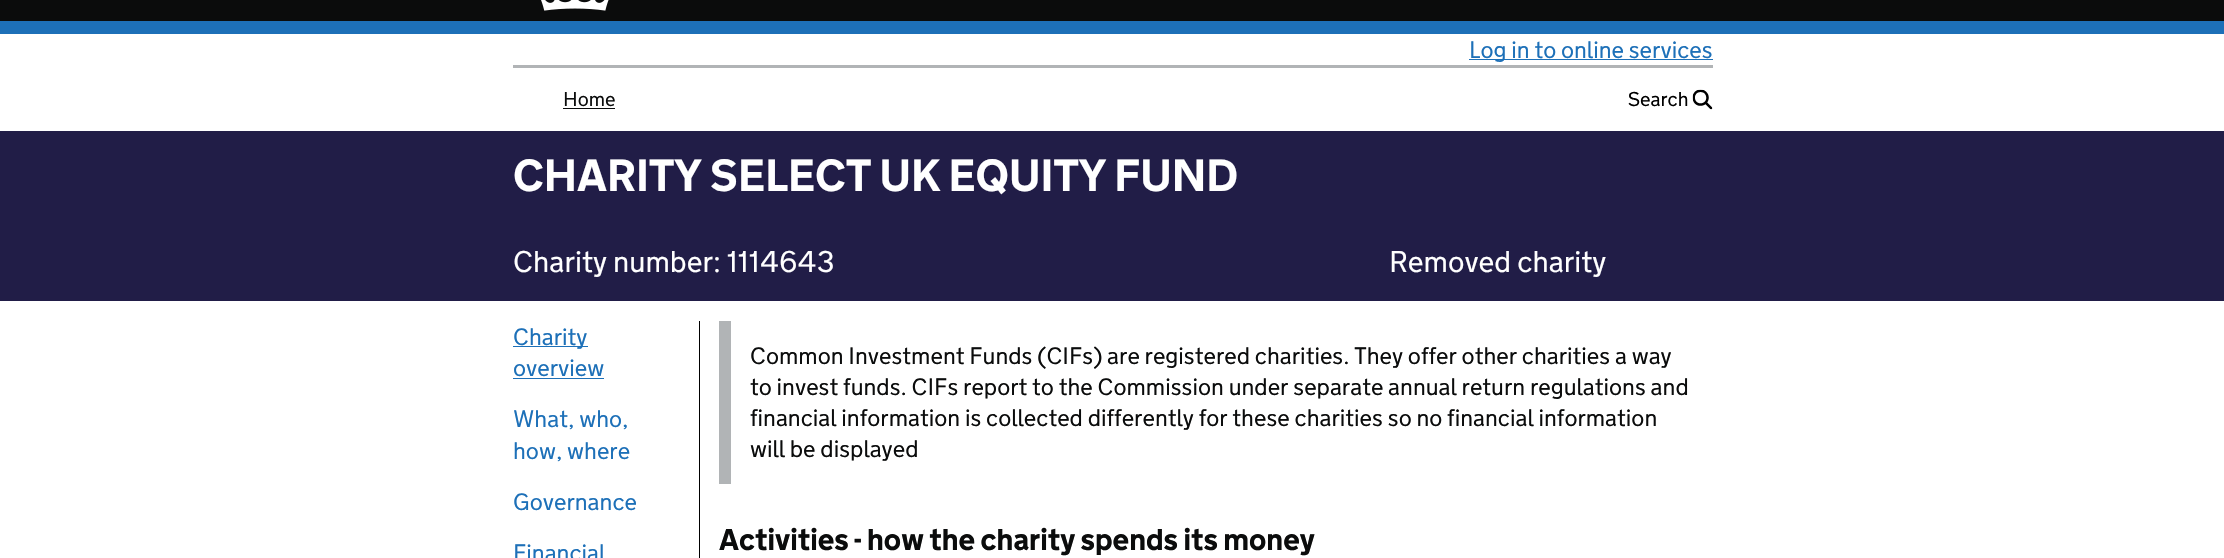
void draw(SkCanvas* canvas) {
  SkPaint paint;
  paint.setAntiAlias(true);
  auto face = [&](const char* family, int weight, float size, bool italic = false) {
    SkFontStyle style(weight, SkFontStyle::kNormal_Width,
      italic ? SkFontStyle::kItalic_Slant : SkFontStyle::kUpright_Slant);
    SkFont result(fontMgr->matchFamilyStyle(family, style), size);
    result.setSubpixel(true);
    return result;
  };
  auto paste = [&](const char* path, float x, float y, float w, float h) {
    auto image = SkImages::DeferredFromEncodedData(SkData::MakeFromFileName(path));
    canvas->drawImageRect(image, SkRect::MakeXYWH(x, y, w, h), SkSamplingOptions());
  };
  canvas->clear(0xffffffff);
  paint.setColor(0xff0b0c0c);
  canvas->drawRect(SkRect::MakeXYWH(0, 0, 2224, 21), paint);
  paint.setColor(0xff1d70b8);
  canvas->drawRect(SkRect::MakeXYWH(0, 21, 2224, 13), paint);
  paste("img/1.png", 541, 0, 68, 11);
  {
    const struct { float x, y, w, h; SkColor color; } items[] = {
      {513, 65, 1200, 3, 0xffb1b4b6},
      {1469, 59, 244, 1, 0xff1d70b8},
      {563, 108, 52, 1, 0xff0b0c0c},
    };
    for (auto [x, y, w, h, color] : items) {
      paint.setColor(color);
      canvas->drawRect(SkRect::MakeXYWH(x, y, w, h), paint);
    }
  }
  paste("img/2.png", 1692, 89, 21, 21);
  {
    const struct { float x, y, w, h; SkColor color; } items[] = {
      {0, 131, 2224, 170, 0xff211d47},
      {699, 321, 1, 237, 0xff000000},
      {513, 346, 75, 1, 0xff1d70b8},
      {513, 378, 91, 1, 0xff1d70b8},
      {719, 321, 12, 163, 0xffb1b4b6},
    };
    for (auto [x, y, w, h, color] : items) {
      paint.setColor(color);
      canvas->drawRect(SkRect::MakeXYWH(x, y, w, h), paint);
    }
  }
  auto f0 = face("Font", 300, 23.75f);
  paint.setColor(0xff1d70b8);
  canvas->drawString("Log in to online services", 1469, 58, f0, paint);
  auto f1 = face("Font", 300, 20);
  paint.setColor(0xff0b0c0c);
  canvas->drawString("Home", 563, 106, f1, paint);
  paint.setColor(0xff000000);
  canvas->drawString("Search", 1628, 106, f1, paint);
  auto f2 = face("Font", 700, 45);
  paint.setColor(0xffffffff);
  canvas->drawString("CHARITY SELECT UK EQUITY FUND", 513, 191, f2, paint);
  auto f3 = face("Font", 300, 30);
  canvas->drawString("Charity number: 1114643", 513, 272, f3, paint);
  canvas->drawString("Removed charity", 1389, 272, f3, paint);
  paint.setColor(0xff1d70b8);
  {
    const struct { const char* s; float x, y; } items[] = {
      {"Charity", 513, 345},
      {"overview", 513, 376},
      {"What, who,", 513, 427},
      {"how, where", 513, 459},
      {"Governance", 513, 510},
      {"Financial", 513, 561},
    };
    for (auto [s, x, y] : items) {
      canvas->drawString(s, x, y, f0, paint);
    }
  }
  paint.setColor(0xff0b0c0c);
  {
    const struct { const char* s; float x, y; } items[] = {
      {"Common Investment Funds (CIFs) are registered charities. They offer other charities a way", 750, 364},
      {"to invest funds. CIFs report to the Commission under separate annual return regulations and", 750, 395},
      {"financial information is collected differently for these charities so no financial information", 750, 426},
      {"will be displayed", 750, 457},
    };
    for (auto [s, x, y] : items) {
      canvas->drawString(s, x, y, f0, paint);
    }
  }
  auto f4 = face("Font", 700, 30);
  canvas->drawString("Activities - how the charity spends its money", 719, 550, f4, paint);
}
